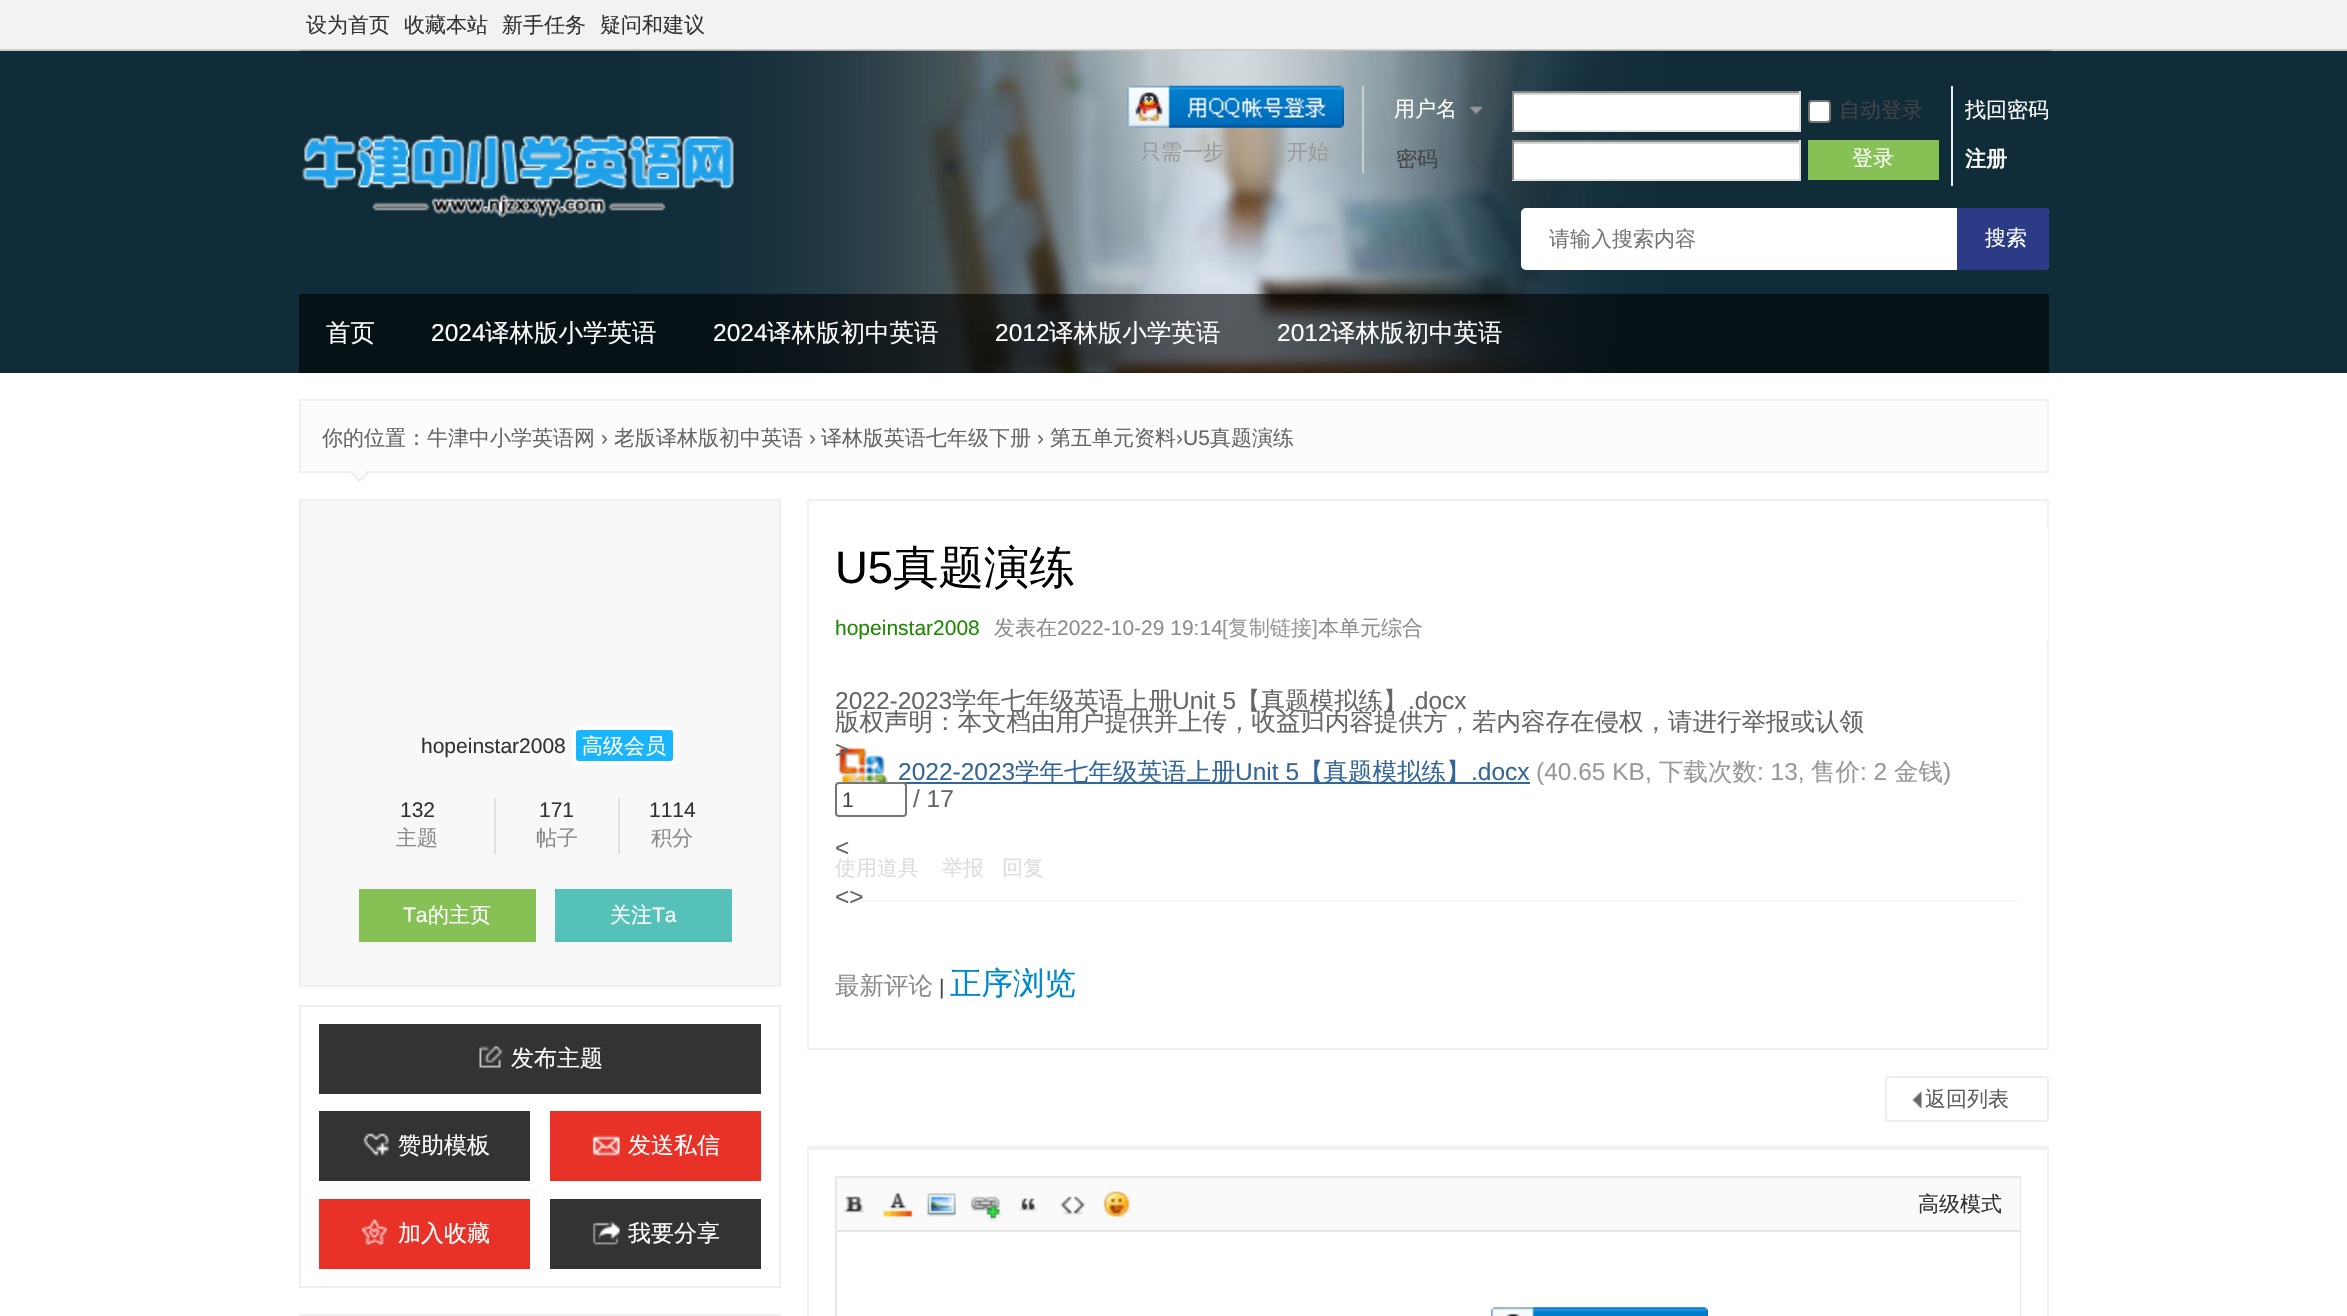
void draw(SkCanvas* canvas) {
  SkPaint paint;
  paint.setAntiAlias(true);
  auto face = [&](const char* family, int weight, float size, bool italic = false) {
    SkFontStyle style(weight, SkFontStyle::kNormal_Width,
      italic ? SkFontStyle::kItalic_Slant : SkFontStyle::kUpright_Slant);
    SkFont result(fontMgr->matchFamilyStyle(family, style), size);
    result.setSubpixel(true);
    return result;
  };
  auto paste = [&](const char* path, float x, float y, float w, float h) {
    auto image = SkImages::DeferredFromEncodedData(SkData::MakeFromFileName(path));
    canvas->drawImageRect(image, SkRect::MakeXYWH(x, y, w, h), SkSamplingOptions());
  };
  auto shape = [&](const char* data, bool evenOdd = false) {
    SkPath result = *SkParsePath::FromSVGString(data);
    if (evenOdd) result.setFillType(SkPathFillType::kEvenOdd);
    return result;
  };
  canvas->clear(0xffffffff);
  {
    const struct { float x, y, w, h; SkColor color; } items[] = {
      {0, 0, 2347, 49, 0xfff2f2f2},
      {0, 49, 2347, 2, 0xffcdcdcd},
      {0, 51, 2347, 322, 0xff102c38},
    };
    for (auto [x, y, w, h, color] : items) {
      paint.setColor(color);
      canvas->drawRect(SkRect::MakeXYWH(x, y, w, h), paint);
    }
  }
  paste("img/1.png", 299, 50, 1752, 323);
  paste("img/2.png", 302, 134, 432, 84);
  paint.setColor(0xffcdcdcd);
  canvas->drawRect(SkRect::MakeXYWH(1362, 86, 2, 87), paint);
  paste("img/3.png", 1127, 85, 217, 43);
  paste("img/4.png", 1469, 106, 14, 9);
  {
    const struct { float x, y, w, h; SkColor color; } items[] = {
      {1514, 95, 285, 35, 0xffffffff},
      {1512, 93, 289, 2, 0xffd4d4d4},
      {1512, 91, 289, 2, 0xff848484},
      {1799, 91, 2, 40, 0xffe0e0e0},
      {1512, 130, 289, 2, 0xffe0e0e0},
      {1512, 91, 2, 40, 0xff848484},
    };
    for (auto [x, y, w, h, color] : items) {
      paint.setColor(color);
      canvas->drawRect(SkRect::MakeXYWH(x, y, w, h), paint);
    }
  }
  paint.setColor(0xffffffff);
  canvas->drawRoundRect(SkRect::MakeXYWH(1809, 101, 21, 21), 3, 3, paint);
  paint.setStroke(true);
  paint.setStrokeWidth(2);
  paint.setColor(0xff767676);
  canvas->drawRoundRect(SkRect::MakeXYWH(1809, 101, 21, 21), 3, 3, paint);
  paint.setStroke(false);
  {
    const struct { float x, y, w, h; SkColor color; } items[] = {
      {1514, 144, 285, 35, 0xffffffff},
      {1512, 142, 289, 2, 0xffd4d4d4},
      {1512, 140, 289, 2, 0xff848484},
      {1799, 140, 2, 40, 0xffe0e0e0},
      {1512, 179, 289, 2, 0xffe0e0e0},
      {1512, 140, 2, 40, 0xff848484},
      {1951, 86, 2, 100, 0xffe5edf2},
      {1808, 140, 131, 40, 0xff85c155},
    };
    for (auto [x, y, w, h, color] : items) {
      paint.setColor(color);
      canvas->drawRect(SkRect::MakeXYWH(x, y, w, h), paint);
    }
  }
  paint.setColor(0xffffffff);
  canvas->drawRoundRect(SkRect::MakeXYWH(1521, 208, 528, 62), 5, 5, paint);
  paint.setColor(0xff2c3b85);
  canvas->drawPath(shape("M1957 208H2044C2047 208 2049 210 2049 213V265C2049 268 2047 270 2044 270H1957Z"), paint);
  paint.setColor(0x99000000);
  canvas->drawRect(SkRect::MakeXYWH(299, 294, 1750, 79), paint);
  paint.setColor(0xfffcfcfc);
  canvas->drawRect(SkRect::MakeXYWH(300, 400, 1748, 72), paint);
  paint.setStroke(true);
  paint.setColor(0xffeff0f2);
  canvas->drawRect(SkRect::MakeXYWH(300, 400, 1748, 72), paint);
  paint.setStroke(false);
  paint.setColor(0xfffcfcfc);
  canvas->drawPath(shape("M359.5 464.5L368.5 473.5L359.5 482L351 473.5Z"), paint);
  paint.setColor(0xffedecee);
  canvas->drawPath(shape("M367 472L368.5 473.5L359.5 482L358.5 481Z"), paint);
  canvas->drawPath(shape("M352 472L361 481L359.5 482L351 473.5Z"), paint);
  paint.setColor(0xfff8f8f8);
  canvas->drawRect(SkRect::MakeXYWH(300, 500, 480, 486), paint);
  paint.setStroke(true);
  paint.setColor(0xffefefef);
  canvas->drawRect(SkRect::MakeXYWH(300, 500, 480, 486), paint);
  paint.setStroke(false);
  paint.setColor(0xff19b5fe);
  canvas->drawRoundRect(SkRect::MakeXYWH(574, 728, 101, 35), 5, 5, paint);
  paint.setStroke(true);
  paint.setStrokeWidth(4);
  paint.setColor(0xffffffff);
  canvas->drawRoundRect(SkRect::MakeXYWH(574, 728, 101, 35), 5, 5, paint);
  paint.setStroke(false);
  {
    const struct { float x, y, w, h; SkColor color; } items[] = {
      {618, 798, 2, 56, 0xffdfdfdf},
      {494, 798, 2, 56, 0xffdfdfdf},
      {359, 889, 177, 53, 0xff85c155},
      {555, 889, 177, 53, 0xff55c1b8},
    };
    for (auto [x, y, w, h, color] : items) {
      paint.setColor(color);
      canvas->drawRect(SkRect::MakeXYWH(x, y, w, h), paint);
    }
  }
  paint.setStroke(true);
  paint.setStrokeWidth(2);
  paint.setColor(0xffefefef);
  canvas->drawRect(SkRect::MakeXYWH(300, 1006, 480, 281), paint);
  paint.setStroke(false);
  paint.setColor(0xff333333);
  canvas->drawRect(SkRect::MakeXYWH(319, 1024, 442, 70), paint);
  paste("img/5.png", 479, 1046, 24, 22);
  canvas->drawRect(SkRect::MakeXYWH(319, 1111, 211, 70), paint);
  paste("img/6.png", 363, 1133, 26, 23);
  paint.setColor(0xffe83228);
  canvas->drawRect(SkRect::MakeXYWH(550, 1111, 211, 70), paint);
  paste("img/7.png", 592, 1135, 28, 21);
  canvas->drawRect(SkRect::MakeXYWH(319, 1199, 211, 70), paint);
  paste("img/8.png", 361, 1219, 27, 26);
  paint.setColor(0xff333333);
  canvas->drawRect(SkRect::MakeXYWH(550, 1199, 211, 70), paint);
  paste("img/9.png", 592, 1221, 28, 24);
  paint.setStroke(true);
  paint.setColor(0xffefefef);
  canvas->drawRect(SkRect::MakeXYWH(300, 1315, 480, 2), paint);
  canvas->drawRect(SkRect::MakeXYWH(808, 500, 1240, 549), paint);
  paint.setStroke(false);
  paint.setColor(0xffffffff);
  canvas->drawRect(SkRect::MakeXYWH(2047, 527, 1, 114), paint);
  paint.setColor(0xff336699);
  canvas->drawRect(SkRect::MakeXYWH(898, 782, 632, 2), paint);
  paint.setColor(0xffffffff);
  canvas->drawRoundRect(SkRect::MakeXYWH(836, 783, 70, 33), 3, 3, paint);
  paint.setStroke(true);
  paint.setColor(0xff767676);
  canvas->drawRoundRect(SkRect::MakeXYWH(836, 783, 70, 33), 3, 3, paint);
  paste("img/10.png", 838, 747, 50, 35);
  paint.setStroke(false);
  paint.setColor(0xfff8f8f8);
  canvas->drawRect(SkRect::MakeXYWH(835, 900, 1186, 2), paint);
  paste("img/11.png", 1912, 1091, 10, 18);
  paint.setStroke(true);
  paint.setColor(0xffededed);
  canvas->drawRoundRect(SkRect::MakeXYWH(1886, 1077, 162, 44), 3, 3, paint);
  canvas->save();
  canvas->clipRect(SkRect::MakeXYWH(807, 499, 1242, 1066));
  canvas->clipRect(SkRect::MakeXYWH(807, 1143, 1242, 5));
  paint.setStroke(false);
  paint.setColor(0xffdddddd);
  paint.setMaskFilter(SkMaskFilter::MakeBlur(kNormal_SkBlurStyle, 2.5f));
  canvas->drawRect(SkRect::MakeXYWH(807, 1148, 1242, 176), paint);
  paint.setMaskFilter(nullptr);
  canvas->restore();
  paint.setStroke(true);
  paint.setColor(0xfff1f1f1);
  canvas->drawRect(SkRect::MakeXYWH(808, 1149, 1240, 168), paint);
  paint.setColor(0xffe7e7e7);
  canvas->drawRect(SkRect::MakeXYWH(836, 1177, 1184, 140), paint);
  paint.setStroke(false);
  paint.setColor(0xfffafafa);
  canvas->drawRect(SkRect::MakeXYWH(837, 1178, 1183, 52), paint);
  paint.setColor(0xffe6e6e6);
  canvas->drawRect(SkRect::MakeXYWH(837, 1230, 1183, 2), paint);
  paste("img/12.png", 843, 1196, 22, 17);
  paste("img/13.png", 883, 1193, 30, 25);
  paste("img/14.png", 927, 1193, 30, 24);
  paste("img/15.png", 970, 1196, 33, 26);
  paste("img/16.png", 1018, 1198, 20, 14);
  paste("img/17.png", 1060, 1196, 26, 19);
  paste("img/18.png", 1101, 1191, 30, 27);
  paint.setColor(0xffffffff);
  canvas->drawRect(SkRect::MakeXYWH(2019, 1232, 1, 84), paint);
  paste("img/19.png", 1491, 1307, 217, 9);
  auto f0 = face("WenQuanYi Zen Hei", 500, 21);
  paint.setColor(0xff333333);
  {
    const struct { const char* s; float x, y; } items[] = {
      {"设为首页", 306, 32},
      {"收藏本站", 404, 32},
      {"新手任务", 502, 32},
      {"疑问和建议", 600, 32},
    };
    for (auto [s, x, y] : items) {
      canvas->drawString(s, x, y, f0, paint);
    }
  }
  paint.setColor(0xff999999);
  canvas->drawString("只需一步", 1140, 159, f0, paint);
  canvas->drawString("开始", 1287, 159, f0, paint);
  paint.setColor(0xffffffff);
  canvas->drawString("用户名", 1394, 116, f0, paint);
  paint.setColor(0xff444444);
  canvas->drawString("自动登录", 1839, 117, f0, paint);
  paint.setColor(0xffffffff);
  canvas->drawString("找回密码", 1965, 117, f0, paint);
  paint.setColor(0xff444444);
  canvas->drawString("密码", 1396, 166, f0, paint);
  paint.setColor(0xffffffff);
  canvas->drawString("登录", 1852, 165, f0, paint);
  auto f1 = face("WenQuanYi Zen Hei", 700, 21);
  canvas->drawString("注册", 1965, 166, f1, paint);
  paint.setColor(0xff757575);
  canvas->drawString("请输入搜索内容", 1549, 246, f0, paint);
  paint.setColor(0xffffffff);
  canvas->drawString("搜索", 1985, 245, f0, paint);
  auto f2 = face("WenQuanYi Zen Hei", 500, 24.5f);
  canvas->drawString("首页", 326, 341, f2, paint);
  auto f3 = face("Liberation Sans", 400, 24.5f);
  canvas->drawString("2024", 431, 341, f3, paint);
  canvas->drawString("译林版小学英语", 485, 341, f2, paint);
  canvas->drawString("2024", 713, 341, f3, paint);
  canvas->drawString("译林版初中英语", 767, 341, f2, paint);
  canvas->drawString("2012", 995, 341, f3, paint);
  canvas->drawString("译林版小学英语", 1049, 341, f2, paint);
  canvas->drawString("2012", 1277, 341, f3, paint);
  canvas->drawString("译林版初中英语", 1331, 341, f2, paint);
  paint.setColor(0xff666666);
  canvas->drawString("你的位置：牛津中小学英语网", 322, 445, f0, paint);
  auto f4 = face("Liberation Sans", 400, 21);
  canvas->drawString("›", 601, 445, f4, paint);
  canvas->drawString("老版译林版初中英语", 614, 445, f0, paint);
  canvas->drawString("›", 809, 445, f4, paint);
  canvas->drawString("译林版英语七年级下册", 821, 445, f0, paint);
  canvas->drawString("›", 1037, 445, f4, paint);
  canvas->drawString("第五单元资料", 1050, 445, f0, paint);
  canvas->drawString("›U5", 1176, 445, f4, paint);
  canvas->drawString("真题演练", 1210, 445, f0, paint);
  paint.setColor(0xff333333);
  canvas->drawString("hopeinstar2008", 421, 753, f4, paint);
  paint.setColor(0xffffffff);
  canvas->drawString("高级会员", 582, 753, f0, paint);
  paint.setColor(0xff333333);
  canvas->drawString("132", 400, 817, f4, paint);
  paint.setColor(0xff8c8c8c);
  canvas->drawString("主题", 396, 845, f0, paint);
  paint.setColor(0xff333333);
  canvas->drawString("171", 539, 817, f4, paint);
  paint.setColor(0xff8c8c8c);
  canvas->drawString("帖子", 536, 845, f0, paint);
  paint.setColor(0xff333333);
  canvas->drawString("1114", 649, 817, f4, paint);
  paint.setColor(0xff8c8c8c);
  canvas->drawString("积分", 651, 845, f0, paint);
  paint.setColor(0xffffffff);
  canvas->drawString("Ta", 403, 922, f4, paint);
  canvas->drawString("的主页", 428, 922, f0, paint);
  canvas->drawString("关注", 610, 922, f0, paint);
  canvas->drawString("Ta", 652, 922, f4, paint);
  auto f5 = face("WenQuanYi Zen Hei", 500, 23);
  {
    const struct { const char* s; float x, y; } items[] = {
      {"发布主题", 511, 1066},
      {"赞助模板", 398, 1153},
      {"发送私信", 628, 1153},
      {"加入收藏", 398, 1241},
      {"我要分享", 628, 1241},
    };
    for (auto [s, x, y] : items) {
      canvas->drawString(s, x, y, f5, paint);
    }
  }
  auto f6 = face("Liberation Sans", 400, 45.5f);
  paint.setColor(0xff000000);
  canvas->drawString("U5", 835, 583, f6, paint);
  auto f7 = face("WenQuanYi Zen Hei", 500, 45.5f);
  canvas->drawString("真题演练", 893, 583, f7, paint);
  paint.setColor(0xff1f8902);
  canvas->drawString("hopeinstar2008", 835, 635, f4, paint);
  paint.setColor(0xff8c8c8c);
  canvas->drawString("发表在", 994, 635, f0, paint);
  canvas->drawString("2022-10-29 19:14", 1057, 635, f4, paint);
  paint.setColor(0xff999999);
  canvas->drawString("[", 1222, 635, f4, paint);
  canvas->drawString("复制链接", 1228, 635, f0, paint);
  canvas->drawString("]", 1312, 635, f4, paint);
  paint.setColor(0xff8c8c8c);
  canvas->drawString("本单元综合", 1318, 635, f0, paint);
  paint.setColor(0xff666666);
  canvas->drawString("2022-2023", 835, 709, f3, paint);
  canvas->drawString("学年七年级英语上册", 952, 709, f2, paint);
  canvas->drawString("Unit 5", 1172, 709, f3, paint);
  canvas->drawString("【真题模拟练】", 1236, 709, f2, paint);
  canvas->drawString(".docx", 1408, 709, f3, paint);
  canvas->drawString(">", 835, 758, f3, paint);
  paint.setColor(0xff444444);
  canvas->drawString("1", 842, 807, f4, paint);
  paint.setColor(0xff666666);
  {
    const struct { const char* s; float x, y; } items[] = {
      {"/ 17", 913, 807},
      {"<", 835, 856},
      {"<>", 835, 905},
    };
    for (auto [s, x, y] : items) {
      canvas->drawString(s, x, y, f3, paint);
    }
  }
  canvas->drawString("版权声明：本文档由用户提供并上传，收益归内容提供方，若内容存在侵权，请进行举报或认领", 835, 730, f2, paint);
  paint.setColor(0xff336699);
  canvas->drawString("2022-2023", 898, 780, f3, paint);
  canvas->drawString("学年七年级英语上册", 1015, 780, f2, paint);
  canvas->drawString("Unit 5", 1235, 780, f3, paint);
  canvas->drawString("【真题模拟练】", 1299, 780, f2, paint);
  canvas->drawString(".docx", 1471, 780, f3, paint);
  paint.setColor(0xff999999);
  canvas->drawString("(40.65 KB,", 1536, 780, f3, paint);
  canvas->drawString("下载次数", 1659, 780, f2, paint);
  canvas->drawString(": 13,", 1757, 780, f3, paint);
  canvas->drawString("售价", 1811, 780, f2, paint);
  canvas->drawString(": 2", 1860, 780, f3, paint);
  canvas->drawString("金钱", 1894, 780, f2, paint);
  canvas->drawString(")", 1943, 780, f3, paint);
  paint.setColor(0xffdddddd);
  {
    const struct { const char* s; float x, y; } items[] = {
      {"使用道具", 835, 875},
      {"举报", 942, 875},
      {"回复", 1002, 875},
    };
    for (auto [s, x, y] : items) {
      canvas->drawString(s, x, y, f0, paint);
    }
  }
  paint.setColor(0xff8c8c8c);
  canvas->drawString("最新评论", 835, 994, f2, paint);
  paint.setColor(0xff444444);
  canvas->drawString("|", 939, 994, f4, paint);
  auto f8 = face("WenQuanYi Zen Hei", 500, 31.5f);
  paint.setColor(0xff0088cc);
  canvas->drawString("正序浏览", 950, 994, f8, paint);
  paint.setColor(0xff5e5e5e);
  canvas->drawString("返回列表", 1925, 1106, f0, paint);
  paint.setColor(0xff333333);
  canvas->drawString("高级模式", 1918, 1211, f0, paint);
}
